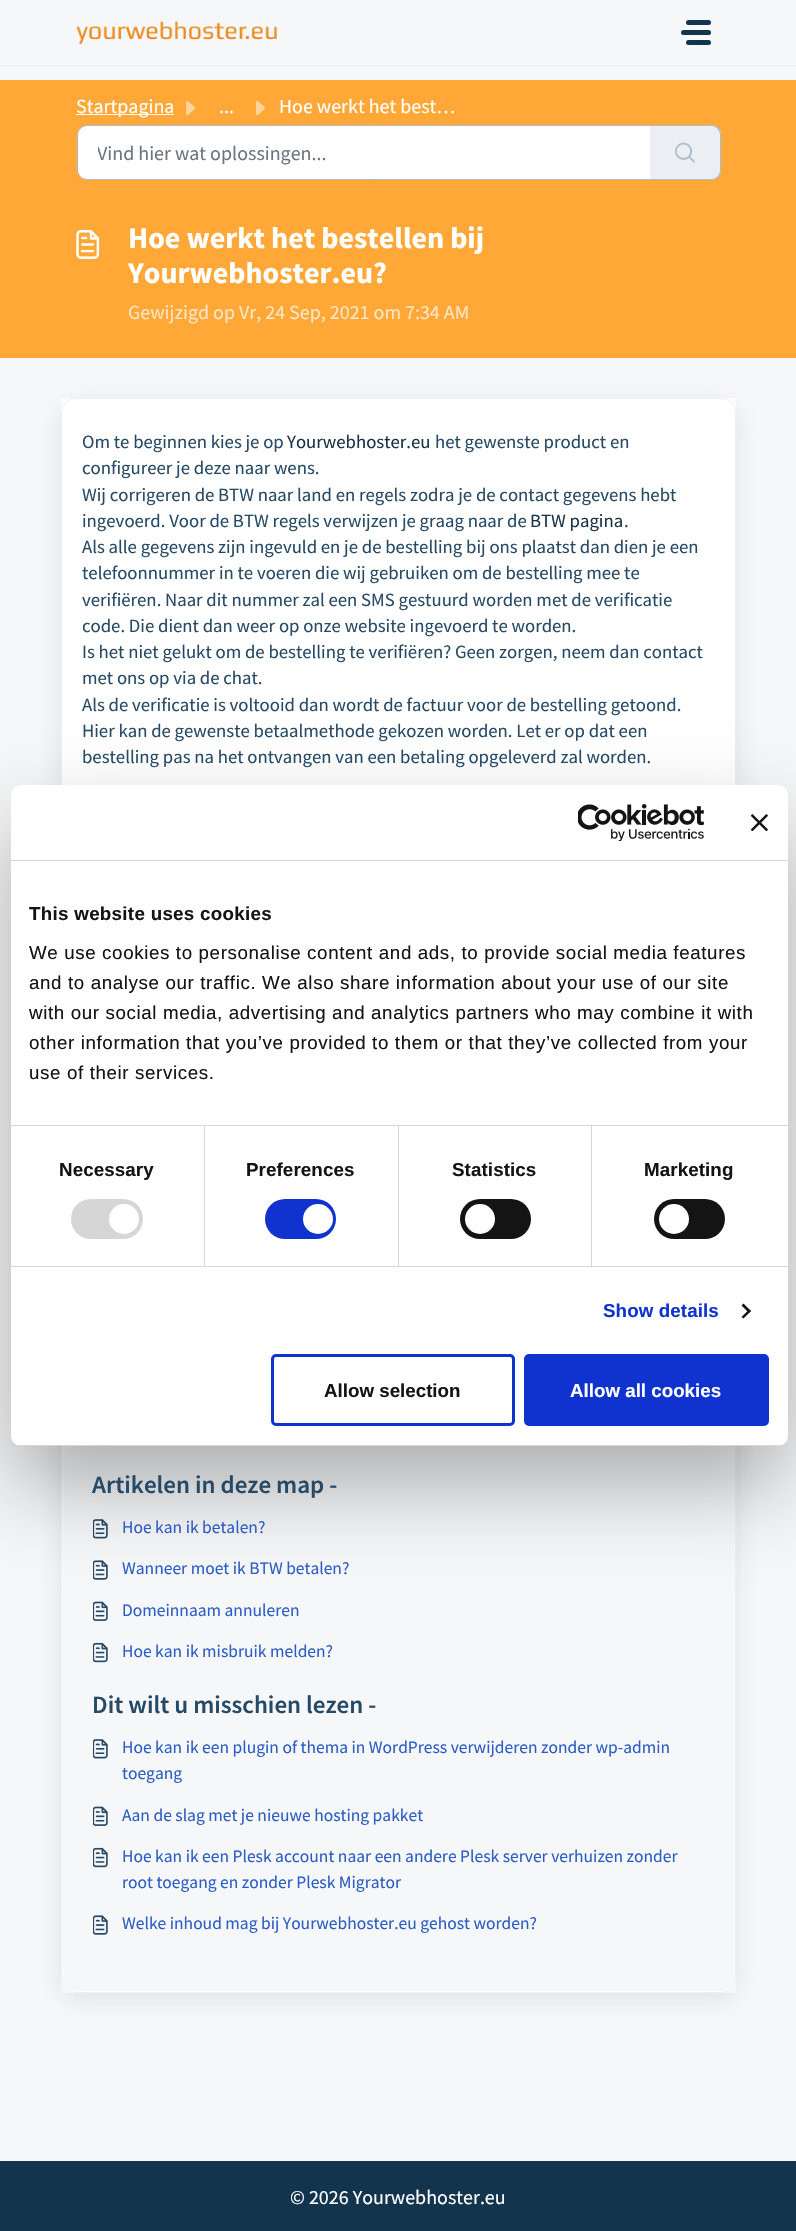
void draw(SkCanvas* canvas) {
  SkPaint paint;
  paint.setAntiAlias(true);
  auto face = [&](const char* family, int weight, float size, bool italic = false) {
    SkFontStyle style(weight, SkFontStyle::kNormal_Width,
      italic ? SkFontStyle::kItalic_Slant : SkFontStyle::kUpright_Slant);
    SkFont result(fontMgr->matchFamilyStyle(family, style), size);
    result.setSubpixel(true);
    return result;
  };
  auto writeSpaced = [&](const char* s, float x, float y, const SkFont& font, const SkPaint& ink, float letter, float word) {
    std::vector<SkGlyphID> glyphs(font.countText(s, strlen(s), SkTextEncoding::kUTF8));
    std::vector<float> xs(glyphs.size());
    font.textToGlyphs(s, strlen(s), SkTextEncoding::kUTF8, glyphs);
    font.getXPos(glyphs, xs, x);
    float extra = 0;
    for (size_t i = 0; i < glyphs.size(); i++) {
      xs[i] += extra;
      extra += letter + word * (glyphs[i] == font.unicharToGlyph(' '));
    }
    canvas->drawTextBlob(SkTextBlob::MakeFromPosHGlyphs(glyphs, xs, y, font), 0, 0, ink);
  };
  auto paste = [&](const char* path, float x, float y, float w, float h) {
    auto image = SkImages::DeferredFromEncodedData(SkData::MakeFromFileName(path));
    canvas->drawImageRect(image, SkRect::MakeXYWH(x, y, w, h), SkSamplingOptions());
  };
  auto shape = [&](const char* data, bool evenOdd = false) {
    SkPath result = *SkParsePath::FromSVGString(data);
    if (evenOdd) result.setFillType(SkPathFillType::kEvenOdd);
    return result;
  };
  canvas->clear(0xfff5f7f9);
  paint.setColor(0xffebeff3);
  canvas->drawRect(SkRect::MakeXYWH(0, 65, 796, 1), paint);
  paste("img/1.png", 76, 21, 201, 24);
  paint.setColor(0xff12344d);
  canvas->drawRoundRect(SkRect::MakeXYWH(686, 20, 25, 5), 2.5f, 2.5f, paint);
  canvas->drawRoundRect(SkRect::MakeXYWH(681, 30, 30, 5), 2.5f, 2.5f, paint);
  canvas->drawRoundRect(SkRect::MakeXYWH(686, 40, 25, 5), 2.5f, 2.5f, paint);
  paint.setColor(0xffffa737);
  canvas->drawRect(SkRect::MakeXYWH(0, 80, 796, 278), paint);
  paint.setColor(0xffffffff);
  canvas->drawRect(SkRect::MakeXYWH(76, 114, 98, 1), paint);
  paste("img/2.png", 186, 101, 10, 15);
  paste("img/3.png", 256, 101, 10, 15);
  canvas->drawPath(shape("M87 126H650V179H87C82 179 78 175 78 170V135C78 130 82 126 87 126Z"), paint);
  paint.setStroke(true);
  paint.setStrokeWidth(1);
  paint.setColor(0xffb1bdc8);
  canvas->drawPath(shape("M86 125.5H650.5V179.5H86C81 179.5 76.5 175 76.5 170V135C76.5 130 81 125.5 86 125.5Z"), paint);
  paint.setStroke(false);
  paint.setColor(0xffebeff3);
  canvas->drawPath(shape("M650 125H711C716.5 125 721 129.5 721 135V170C721 175.5 716.5 180 711 180H650Z"), paint);
  paint.setColor(0xffb1bdc8);
  canvas->drawPath(shape("M650 125H711C717 125 721 129 721 135V170C721 176 717 180 711 180H650ZM650 126H711C716 126 720 130 720 135V170C720 175 716 179 711 179H650Z", true), paint);
  paste("img/4.png", 675, 142, 20, 21);
  paste("img/5.png", 76, 230, 24, 29);
  paint.setColor(0xffffffff);
  canvas->drawRect(SkRect::MakeXYWH(61, 398, 675, 1595), paint);
  canvas->save();
  canvas->clipPath(shape("M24 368H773V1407H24ZM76 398H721C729.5 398 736 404.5 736 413V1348C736 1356.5 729.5 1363 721 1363H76C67.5 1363 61 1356.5 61 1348V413C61 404.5 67.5 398 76 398Z", true), true);
  paint.setColor(0x1a27313a);
  paint.setMaskFilter(SkMaskFilter::MakeBlur(kNormal_SkBlurStyle, 12));
  canvas->drawRoundRect(SkRect::MakeXYWH(61, 405, 675, 965), 15, 15, paint);
  paint.setMaskFilter(nullptr);
  canvas->restore();
  paint.setStroke(true);
  paint.setColor(0xffebeff3);
  canvas->drawRoundRect(SkRect::MakeXYWH(61.5f, 398.5f, 674, 964), 14.5f, 14.5f, paint);
  canvas->save();
  canvas->clipPath(shape("M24 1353H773V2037H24ZM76 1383H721C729.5 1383 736 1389.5 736 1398V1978C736 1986.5 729.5 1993 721 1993H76C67.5 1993 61 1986.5 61 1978V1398C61 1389.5 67.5 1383 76 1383Z", true), true);
  paint.setStroke(false);
  paint.setColor(0x1a27313a);
  paint.setMaskFilter(SkMaskFilter::MakeBlur(kNormal_SkBlurStyle, 12));
  canvas->drawRoundRect(SkRect::MakeXYWH(61, 1390, 675, 610), 15, 15, paint);
  paint.setMaskFilter(nullptr);
  canvas->restore();
  paint.setStroke(true);
  paint.setColor(0xffebeff3);
  canvas->drawRoundRect(SkRect::MakeXYWH(61.5f, 1383.5f, 674, 609), 14.5f, 14.5f, paint);
  paint.setStroke(false);
  paint.setColor(0xfff5f7f9);
  canvas->drawPath(shape("M63 1384H720C728.5 1384 735 1390.5 735 1399V1976C735 1984.5 728.5 1991 720 1991H63Z"), paint);
  paste("img/6.png", 93, 1519, 15, 20);
  paste("img/7.png", 93, 1560, 15, 20);
  paste("img/8.png", 93, 1601, 15, 20);
  paste("img/9.png", 93, 1642, 15, 21);
  paste("img/6.png", 93, 1739, 15, 20);
  paste("img/8.png", 93, 1806, 15, 20);
  paste("img/9.png", 93, 1847, 15, 21);
  paste("img/7.png", 93, 1915, 15, 20);
  paint.setColor(0x4d000000);
  paint.setMaskFilter(SkMaskFilter::MakeBlur(kNormal_SkBlurStyle, 42.5f));
  canvas->drawRoundRect(SkRect::MakeXYWH(11, 825, 777, 661), 10, 10, paint);
  paint.setMaskFilter(nullptr);
  paint.setColor(0xffffffff);
  canvas->drawRoundRect(SkRect::MakeXYWH(11, 785, 777, 661), 10, 10, paint);
  paint.setColor(0xffd6d6d6);
  canvas->drawRect(SkRect::MakeXYWH(11, 860, 777, 1), paint);
  paste("img/10.png", 578, 804, 127, 37);
  paste("img/11.png", 751, 814, 17, 17);
  {
    const struct { float x, y, w, h; SkColor color; } items[] = {
      {11, 1125, 777, 1, 0xffd6d6d6},
      {11, 1266, 777, 1, 0xffd6d6d6},
      {204, 1126, 1, 140, 0xffd6d6d6},
    };
    for (auto [x, y, w, h, color] : items) {
      paint.setColor(color);
      canvas->drawRect(SkRect::MakeXYWH(x, y, w, h), paint);
    }
  }
  canvas->drawRoundRect(SkRect::MakeXYWH(71, 1199, 72, 40), 20, 20, paint);
  paint.setColor(0xffffffff);
  canvas->drawCircle(124, 1219, 15, paint);
  paint.setColor(0xffd6d6d6);
  canvas->drawRect(SkRect::MakeXYWH(398, 1126, 1, 140), paint);
  paint.setColor(0xff1032cf);
  canvas->drawRoundRect(SkRect::MakeXYWH(265, 1199, 71, 40), 20, 20, paint);
  paint.setColor(0xffffffff);
  canvas->drawCircle(318, 1219, 15, paint);
  paint.setColor(0xffd6d6d6);
  canvas->drawRect(SkRect::MakeXYWH(591, 1126, 1, 140), paint);
  paint.setColor(0xff141414);
  canvas->drawRoundRect(SkRect::MakeXYWH(460, 1199, 71, 40), 20, 20, paint);
  paint.setColor(0xffffffff);
  canvas->drawCircle(480, 1219, 15, paint);
  paint.setColor(0xff141414);
  canvas->drawRoundRect(SkRect::MakeXYWH(654, 1199, 71, 40), 20, 20, paint);
  paint.setColor(0xffffffff);
  canvas->drawCircle(674, 1219, 15, paint);
  paint.setColor(0xff141414);
  canvas->drawPath(shape("M743.5 1303.5L751 1311L749 1313L741.5 1305.5Z"), paint);
  canvas->drawPath(shape("M749 1309.5L751 1311L743.5 1318.5L741.5 1317Z"), paint);
  canvas->save();
  canvas->clipPath(shape("M21 785H778C783.5 785 788 789.5 788 795V1436C788 1441.5 783.5 1446 778 1446H21C15.5 1446 11 1441.5 11 1436V795C11 789.5 15.5 785 21 785Z"), true);
  paint.setColor(0xffd6d6d6);
  canvas->drawRect(SkRect::MakeXYWH(11, 1445, 777, 1), paint);
  canvas->restore();
  paint.setStroke(true);
  paint.setStrokeWidth(3);
  paint.setColor(0xff1032cf);
  canvas->drawRoundRect(SkRect::MakeXYWH(272.5f, 1355.5f, 241, 69), 3.5f, 3.5f, paint);
  paint.setStroke(false);
  canvas->drawRoundRect(SkRect::MakeXYWH(525.5f, 1355.5f, 242, 69), 3.5f, 3.5f, paint);
  paint.setStroke(true);
  canvas->drawRoundRect(SkRect::MakeXYWH(525.5f, 1355.5f, 242, 69), 3.5f, 3.5f, paint);
  paint.setStroke(false);
  paint.setColor(0xff12344d);
  canvas->drawRect(SkRect::MakeXYWH(0, 2161, 796, 70), paint);
  auto f0 = face("Source Sans Pro", 400, 20);
  paint.setColor(0xffffffff);
  {
    const struct { const char* s; float x, y; } items[] = {
      {"Startpagina", 76, 113},
      {"...", 219, 113},
      {"Hoe werkt het best…", 279, 113},
    };
    for (auto [s, x, y] : items) {
      canvas->drawString(s, x, y, f0, paint);
    }
  }
  canvas->save();
  canvas->clipRect(SkRect::MakeXYWH(98, 140, 532, 25));
  paint.setColor(0xff6c757d);
  canvas->drawString("Vind hier wat oplossingen...", 97, 160, f0, paint);
  canvas->restore();
  auto f1 = face("Source Sans Pro", 700, 30);
  paint.setColor(0xffffffff);
  canvas->drawString("Hoe werkt het bestellen bij", 128, 248, f1, paint);
  canvas->drawString("Yourwebhoster.eu?", 128, 283, f1, paint);
  paint.setColor(0xffffe5c3);
  canvas->drawString("Gewijzigd op Vr, 24 Sep, 2021 om 7:34 AM", 128, 319, f0, paint);
  auto f2 = face("Source Sans Pro", 400, 18.75f);
  paint.setColor(0xff264966);
  canvas->drawString("Om te beginnen kies je op", 82, 448, f2, paint);
  paint.setColor(0xff183247);
  canvas->drawString("Yourwebhoster.eu", 287, 448, f2, paint);
  paint.setColor(0xff264966);
  {
    const struct { const char* s; float x, y; } items[] = {
      {"het gewenste product en", 435, 448},
      {"configureer je deze naar wens.", 82, 474},
      {"Wij corrigeren de BTW naar land en regels zodra je de contact gegevens hebt", 82, 501},
      {"ingevoerd. Voor de BTW regels verwijzen je graag naar de", 82, 527},
    };
    for (auto [s, x, y] : items) {
      canvas->drawString(s, x, y, f2, paint);
    }
  }
  paint.setColor(0xff183247);
  canvas->drawString("BTW pagina", 530, 527, f2, paint);
  paint.setColor(0xff264966);
  {
    const struct { const char* s; float x, y; } items[] = {
      {".", 624, 527},
      {"Als alle gegevens zijn ingevuld en je de bestelling bij ons plaatst dan dien je een", 82, 553},
      {"telefoonnummer in te voeren die wij gebruiken om de bestelling mee te", 82, 579},
      {"verifiëren. Naar dit nummer zal een SMS gestuurd worden met de verificatie", 82, 606},
      {"code. Die dient dan weer op onze website ingevoerd te worden.", 82, 632},
      {"Is het niet gelukt om de bestelling te verifiëren? Geen zorgen, neem dan contact", 82, 658},
      {"met ons op via de chat.", 82, 684},
      {"Als de verificatie is voltooid dan wordt de factuur voor de bestelling getoond.", 82, 711},
      {"Hier kan de gewenste betaalmethode gekozen worden. Let er op dat een", 82, 737},
      {"bestelling pas na het ontvangen van een betaling opgeleverd zal worden.", 82, 763},
    };
    for (auto [s, x, y] : items) {
      canvas->drawString(s, x, y, f2, paint);
    }
  }
  auto f3 = face("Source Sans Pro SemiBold", 600, 25);
  canvas->drawString("Artikelen in deze map -", 92, 1493, f3, paint);
  auto f4 = face("Source Sans Pro", 400, 17.5f);
  paint.setColor(0xff2c5cc5);
  {
    const struct { const char* s; float x, y; } items[] = {
      {"Hoe kan ik betalen?", 122, 1533},
      {"Wanneer moet ik BTW betalen?", 122, 1574},
      {"Domeinnaam annuleren", 122, 1616},
      {"Hoe kan ik misbruik melden?", 122, 1657},
    };
    for (auto [s, x, y] : items) {
      canvas->drawString(s, x, y, f4, paint);
    }
  }
  paint.setColor(0xff264966);
  canvas->drawString("Dit wilt u misschien lezen -", 92, 1713, f3, paint);
  paint.setColor(0xff2c5cc5);
  {
    const struct { const char* s; float x, y; } items[] = {
      {"Hoe kan ik een plugin of thema in WordPress verwijderen zonder wp-admin", 122, 1753},
      {"toegang", 122, 1779},
      {"Aan de slag met je nieuwe hosting pakket", 122, 1821},
      {"Hoe kan ik een Plesk account naar een andere Plesk server verhuizen zonder", 122, 1862},
      {"root toegang en zonder Plesk Migrator", 122, 1888},
      {"Welke inhoud mag bij Yourwebhoster.eu gehost worden?", 122, 1929},
    };
    for (auto [s, x, y] : items) {
      canvas->drawString(s, x, y, f4, paint);
    }
  }
  auto f5 = face("Liberation Sans", 700, 18.75f);
  paint.setColor(0xff141414);
  writeSpaced("This website uses cookies", 29, 920, f5, paint, 0.3f, 0);
  auto f6 = face("Liberation Sans", 400, 18.75f);
  {
    const struct { const char* s; float x, y; } items[] = {
      {"We use cookies to personalise content and ads, to provide social media features", 29, 959},
      {"and to analyse our traffic. We also share information about your use of our site", 29, 989},
      {"with our social media, advertising and analytics partners who may combine it with", 29, 1019},
      {"other information that you’ve provided to them or that they’ve collected from your", 29, 1049},
      {"use of their services.", 29, 1079},
    };
    for (auto [s, x, y] : items) {
      writeSpaced(s, x, y, f6, paint, 0.62f, 0);
    }
  }
  {
    const struct { const char* s; float x, y; } items[] = {
      {"Necessary", 59, 1176},
      {"Preferences", 246, 1176},
      {"Statistics", 452, 1176},
      {"Marketing", 644, 1176},
    };
    for (auto [s, x, y] : items) {
      writeSpaced(s, x, y, f5, paint, 0.1f, 0);
    }
  }
  paint.setColor(0xff1032cf);
  writeSpaced("Show details", 603, 1317, f5, paint, 0.1f, 0);
  paint.setColor(0xff141414);
  canvas->drawString("Allow selection", 324, 1397, f5, paint);
  paint.setColor(0xffffffff);
  canvas->drawString("Allow all cookies", 570, 1397, f5, paint);
  canvas->drawString("© 2026 Yourwebhoster.eu", 290, 2204, f0, paint);
}
